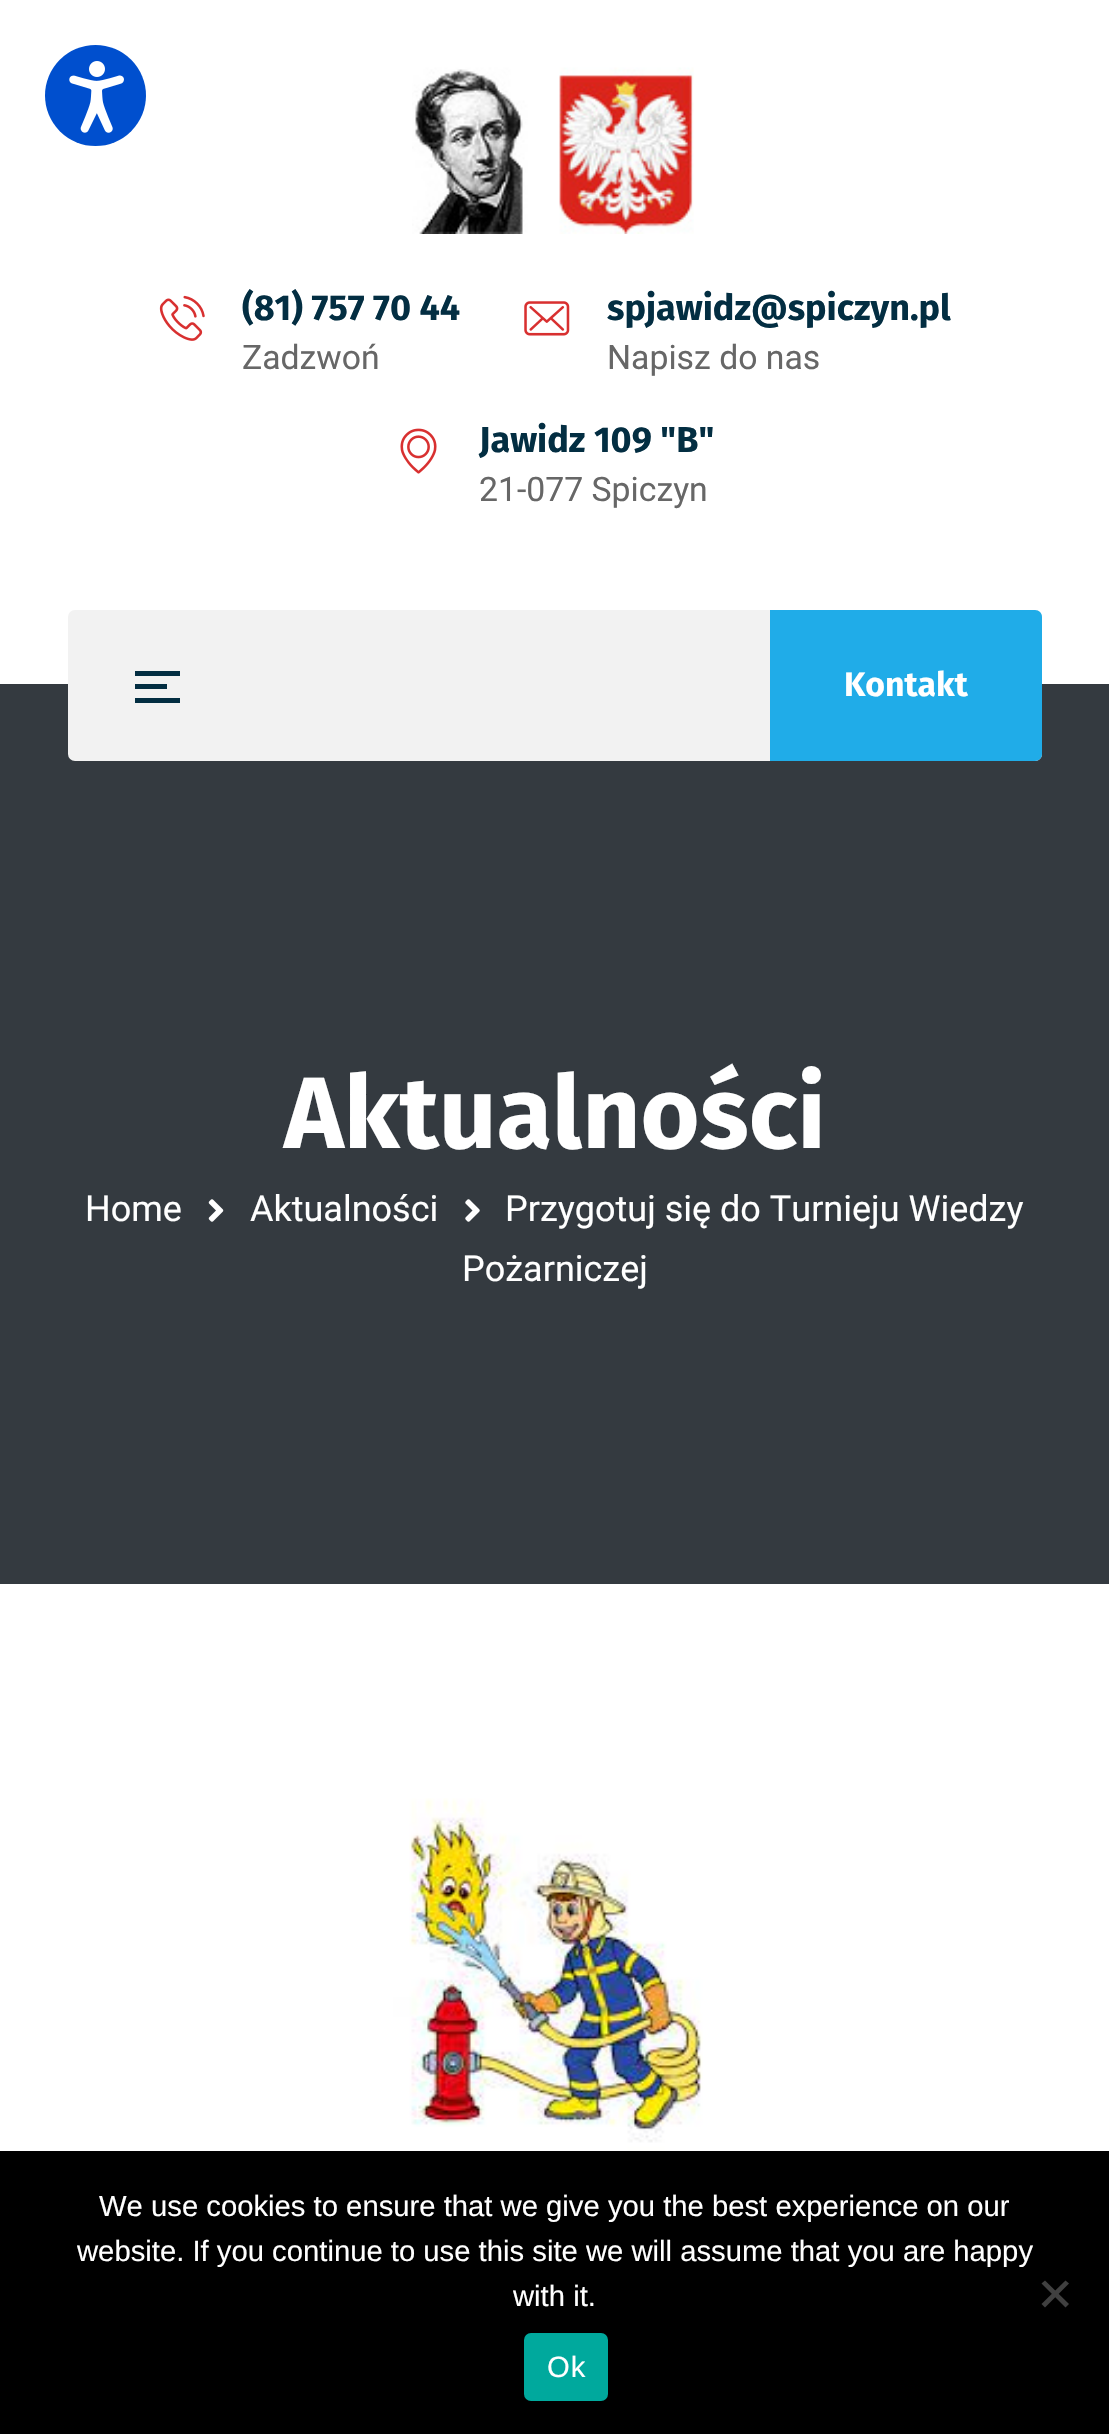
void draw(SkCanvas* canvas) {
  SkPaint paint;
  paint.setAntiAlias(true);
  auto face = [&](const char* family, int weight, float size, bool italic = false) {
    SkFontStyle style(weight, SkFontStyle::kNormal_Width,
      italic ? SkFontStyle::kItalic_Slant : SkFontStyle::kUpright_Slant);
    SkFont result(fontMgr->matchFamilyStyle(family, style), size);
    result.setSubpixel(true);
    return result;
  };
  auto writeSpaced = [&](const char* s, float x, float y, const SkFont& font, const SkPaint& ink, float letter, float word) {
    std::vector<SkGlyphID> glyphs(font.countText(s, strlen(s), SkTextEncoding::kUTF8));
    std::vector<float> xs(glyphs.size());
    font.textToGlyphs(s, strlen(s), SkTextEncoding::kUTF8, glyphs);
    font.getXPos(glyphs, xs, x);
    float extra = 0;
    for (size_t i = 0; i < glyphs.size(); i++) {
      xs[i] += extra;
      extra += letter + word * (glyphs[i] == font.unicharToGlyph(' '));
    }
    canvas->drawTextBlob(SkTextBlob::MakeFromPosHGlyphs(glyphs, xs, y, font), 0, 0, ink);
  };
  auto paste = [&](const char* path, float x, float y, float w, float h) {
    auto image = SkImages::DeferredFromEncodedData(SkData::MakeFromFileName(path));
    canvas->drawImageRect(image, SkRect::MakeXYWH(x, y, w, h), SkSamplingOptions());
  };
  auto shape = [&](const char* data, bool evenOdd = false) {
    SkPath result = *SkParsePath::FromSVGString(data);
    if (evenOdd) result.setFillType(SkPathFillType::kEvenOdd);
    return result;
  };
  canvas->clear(0xffffffff);
  paint.setColor(0xff004fce);
  canvas->drawCircle(95.5f, 95.5f, 50.5f, paint);
  paste("img/1.png", 69, 61, 55, 72);
  paste("img/2.png", 412, 67, 282, 167);
  paste("img/3.png", 159, 295, 46, 46);
  paste("img/4.png", 524, 301, 46, 35);
  paste("img/5.png", 400, 428, 37, 46);
  paint.setColor(0xff343a40);
  canvas->drawRect(SkRect::MakeXYWH(0, 684, 1109, 900), paint);
  paint.setColor(0xfff2f2f2);
  canvas->drawRoundRect(SkRect::MakeXYWH(68, 610, 974, 151), 7, 7, paint);
  {
    const struct { float x, y, w, h; SkColor color; } items[] = {
      {135, 671, 45, 5, 0xff032e42},
      {135, 684, 32, 5, 0xff032e42},
      {135, 698, 45, 5, 0xff032e42},
    };
    for (auto [x, y, w, h, color] : items) {
      paint.setColor(color);
      canvas->drawRect(SkRect::MakeXYWH(x, y, w, h), paint);
    }
  }
  paint.setColor(0xff20ace8);
  canvas->drawPath(shape("M770 610H1035C1039 610 1042 613 1042 617V754C1042 758 1039 761 1035 761H770Z"), paint);
  paste("img/6.png", 208, 1199, 16, 23);
  paste("img/7.png", 465, 1199, 15, 23);
  paste("img/8.png", 304, 1798, 504, 353);
  paint.setColor(0xff000000);
  canvas->drawRect(SkRect::MakeXYWH(0, 2151, 1109, 283), paint);
  paint.setColor(0xff404040);
  canvas->drawPath(shape("M1065.5 2280.5L1069 2283.5L1045 2307.5L1041.5 2304Z"), paint);
  canvas->drawPath(shape("M1041.5 2283.5L1045 2280.5L1069 2304L1065.5 2307.5Z"), paint);
  paint.setColor(0xff00a99d);
  canvas->drawRoundRect(SkRect::MakeXYWH(524, 2333, 84, 68), 7, 7, paint);
  auto f0 = face("Fira Sans", 700, 36);
  paint.setColor(0xff032e42);
  canvas->drawString("(81) 757 70 44", 242, 320, f0, paint);
  auto f1 = face("Roboto", 400, 33.75f);
  paint.setColor(0xff676767);
  canvas->drawString("Zadzwoń", 242, 369, f1, paint);
  paint.setColor(0xff032e42);
  canvas->drawString("spjawidz@spiczyn.pl", 607, 320, f0, paint);
  paint.setColor(0xff676767);
  canvas->drawString("Napisz do nas", 607, 369, f1, paint);
  paint.setColor(0xff032e42);
  canvas->drawString("Jawidz 109 \"B\"", 479, 452, f0, paint);
  paint.setColor(0xff676767);
  canvas->drawString("21-077 Spiczyn", 479, 501, f1, paint);
  auto f2 = face("Fira Sans", 700, 33.75f);
  paint.setColor(0xffffffff);
  canvas->drawString("Kontakt", 844, 696, f2, paint);
  auto f3 = face("Fira Sans", 700, 101.25f);
  canvas->drawString("Aktualności", 284, 1148, f3, paint);
  auto f4 = face("Roboto", 400, 36);
  {
    const struct { const char* s; float x, y; } items[] = {
      {"Home", 85, 1221},
      {"Aktualności", 250, 1221},
      {"Przygotuj się do Turnieju Wiedzy", 505, 1221},
      {"Pożarniczej", 462, 1281},
    };
    for (auto [s, x, y] : items) {
      canvas->drawString(s, x, y, f4, paint);
    }
  }
  auto f5 = face("Liberation Sans", 400, 29.25f);
  {
    const struct { const char* s; float x, y; } items[] = {
      {"We use cookies to ensure that we give you the best experience on our", 99, 2216},
      {"website. If you continue to use this site we will assume that you are happy", 77, 2261},
      {"with it.", 513, 2306},
    };
    for (auto [s, x, y] : items) {
      canvas->drawString(s, x, y, f5, paint);
    }
  }
  writeSpaced("Ok", 547, 2377, f5, paint, 1, 0);
}
